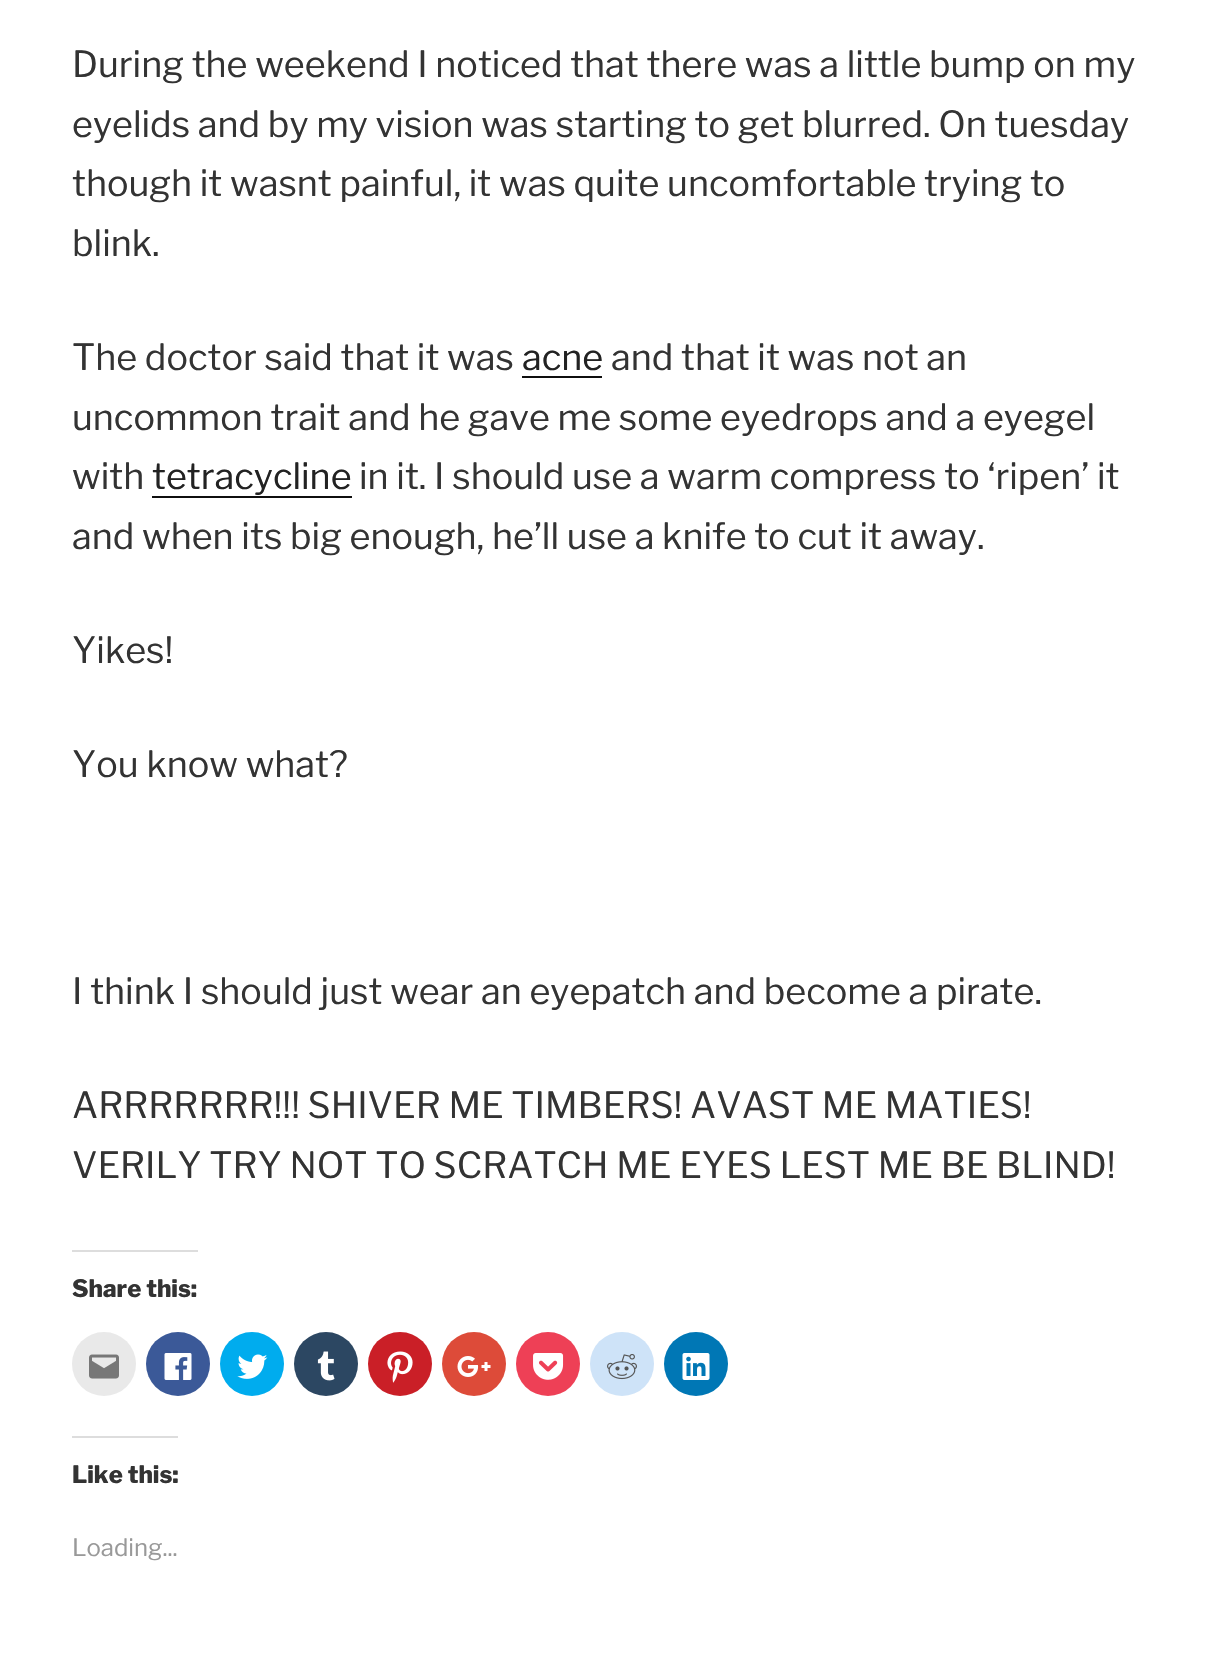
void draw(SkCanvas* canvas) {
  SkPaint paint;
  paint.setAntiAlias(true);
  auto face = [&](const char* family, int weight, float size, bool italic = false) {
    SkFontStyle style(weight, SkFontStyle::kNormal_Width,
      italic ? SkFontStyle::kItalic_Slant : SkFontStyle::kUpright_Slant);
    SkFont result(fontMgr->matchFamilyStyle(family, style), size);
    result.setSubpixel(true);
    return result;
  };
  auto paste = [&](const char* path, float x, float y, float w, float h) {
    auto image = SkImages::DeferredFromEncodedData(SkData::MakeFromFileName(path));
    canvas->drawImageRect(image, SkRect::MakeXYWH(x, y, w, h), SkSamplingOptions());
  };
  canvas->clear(0xffffffff);
  {
    const struct { float x, y, w, h; SkColor color; } items[] = {
      {522, 376, 80, 2, 0xff0f0f0f},
      {152, 496, 200, 2, 0xff0f0f0f},
      {72, 1250, 126, 2, 0xffdddddd},
    };
    for (auto [x, y, w, h, color] : items) {
      paint.setColor(color);
      canvas->drawRect(SkRect::MakeXYWH(x, y, w, h), paint);
    }
  }
  paint.setColor(0xffe9e9e9);
  canvas->drawCircle(104, 1364, 32, paint);
  paste("img/1.png", 89, 1354, 30, 25);
  paint.setColor(0xff3b5998);
  canvas->drawCircle(178, 1364, 32, paint);
  paste("img/2.png", 164, 1353, 28, 27);
  paint.setColor(0xff00acee);
  canvas->drawCircle(252, 1364, 32, paint);
  paste("img/3.png", 237, 1354, 31, 25);
  paint.setColor(0xff2c4762);
  canvas->drawCircle(326, 1364, 32, paint);
  paste("img/4.png", 317, 1351, 18, 30);
  paint.setColor(0xffca1f27);
  canvas->drawCircle(400, 1364, 32, paint);
  paste("img/5.png", 387, 1351, 26, 32);
  paint.setColor(0xffdd4b39);
  canvas->drawCircle(474, 1364, 32, paint);
  paste("img/6.png", 457, 1356, 34, 21);
  paint.setColor(0xffee4056);
  canvas->drawCircle(548, 1364, 32, paint);
  paste("img/7.png", 533, 1353, 31, 27);
  paint.setColor(0xffcee3f8);
  canvas->drawCircle(622, 1364, 32, paint);
  paste("img/8.png", 607, 1354, 30, 26);
  paint.setColor(0xff0077b5);
  canvas->drawCircle(696, 1364, 32, paint);
  paste("img/9.png", 682, 1353, 28, 27);
  paint.setColor(0xffdddddd);
  canvas->drawRect(SkRect::MakeXYWH(72, 1436, 106, 2), paint);
  auto f0 = face("Libre Franklin", 400, 36);
  paint.setColor(0xff333333);
  {
    const struct { const char* s; float x, y; } items[] = {
      {"During the weekend I noticed that there was a little bump on my", 72, 77},
      {"eyelids and by my vision was starting to get blurred. On tuesday", 72, 137},
      {"though it wasnt painful, it was quite uncomfortable trying to", 72, 196},
      {"blink.", 72, 256},
      {"The doctor said that it was", 72, 370},
    };
    for (auto [s, x, y] : items) {
      canvas->drawString(s, x, y, f0, paint);
    }
  }
  paint.setColor(0xff222222);
  canvas->drawString("acne", 522, 370, f0, paint);
  paint.setColor(0xff333333);
  {
    const struct { const char* s; float x, y; } items[] = {
      {"and that it was not an", 611, 370},
      {"uncommon trait and he gave me some eyedrops and a eyegel", 72, 430},
      {"with", 72, 489},
    };
    for (auto [s, x, y] : items) {
      canvas->drawString(s, x, y, f0, paint);
    }
  }
  paint.setColor(0xff222222);
  canvas->drawString("tetracycline", 152, 489, f0, paint);
  paint.setColor(0xff333333);
  {
    const struct { const char* s; float x, y; } items[] = {
      {"in it. I should use a warm compress to ‘ripen’ it", 359, 489},
      {"and when its big enough, he’ll use a knife to cut it away.", 72, 549},
      {"Yikes!", 72, 663},
      {"You know what?", 72, 777},
      {"I think I should just wear an eyepatch and become a pirate.", 72, 1004},
      {"ARRRRRRR!!! SHIVER ME TIMBERS! AVAST ME MATIES!", 72, 1118},
      {"VERILY TRY NOT TO SCRATCH ME EYES LEST ME BE BLIND!", 72, 1178},
    };
    for (auto [s, x, y] : items) {
      canvas->drawString(s, x, y, f0, paint);
    }
  }
  auto f1 = face("Libre Franklin", 800, 24);
  canvas->drawString("Share this:", 72, 1297, f1, paint);
  canvas->drawString("Like this:", 72, 1483, f1, paint);
  auto f2 = face("Libre Franklin", 400, 24);
  paint.setColor(0xff999999);
  canvas->drawString("Loading...", 72, 1556, f2, paint);
}
